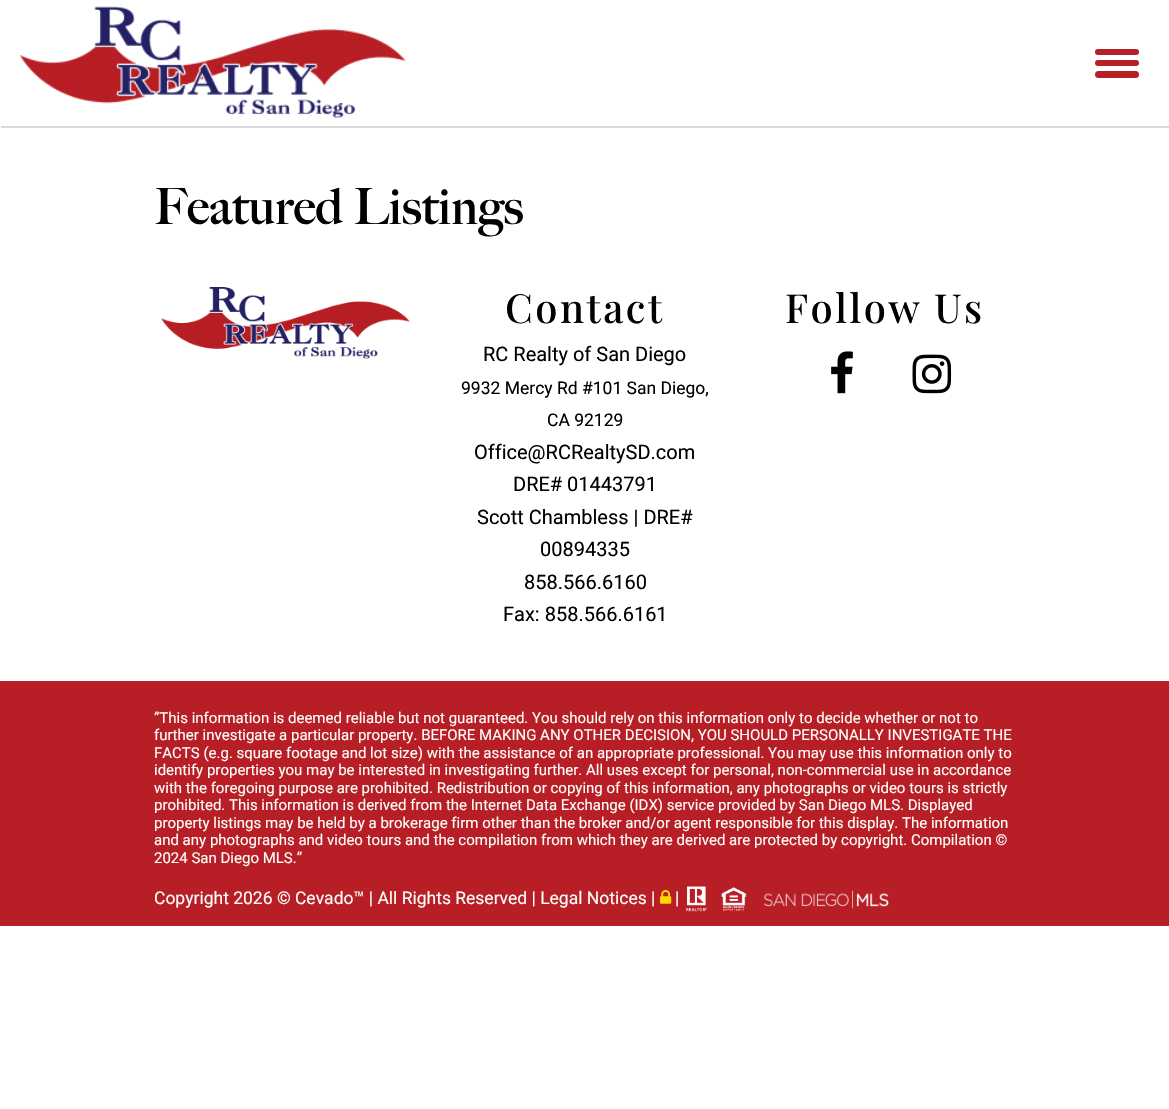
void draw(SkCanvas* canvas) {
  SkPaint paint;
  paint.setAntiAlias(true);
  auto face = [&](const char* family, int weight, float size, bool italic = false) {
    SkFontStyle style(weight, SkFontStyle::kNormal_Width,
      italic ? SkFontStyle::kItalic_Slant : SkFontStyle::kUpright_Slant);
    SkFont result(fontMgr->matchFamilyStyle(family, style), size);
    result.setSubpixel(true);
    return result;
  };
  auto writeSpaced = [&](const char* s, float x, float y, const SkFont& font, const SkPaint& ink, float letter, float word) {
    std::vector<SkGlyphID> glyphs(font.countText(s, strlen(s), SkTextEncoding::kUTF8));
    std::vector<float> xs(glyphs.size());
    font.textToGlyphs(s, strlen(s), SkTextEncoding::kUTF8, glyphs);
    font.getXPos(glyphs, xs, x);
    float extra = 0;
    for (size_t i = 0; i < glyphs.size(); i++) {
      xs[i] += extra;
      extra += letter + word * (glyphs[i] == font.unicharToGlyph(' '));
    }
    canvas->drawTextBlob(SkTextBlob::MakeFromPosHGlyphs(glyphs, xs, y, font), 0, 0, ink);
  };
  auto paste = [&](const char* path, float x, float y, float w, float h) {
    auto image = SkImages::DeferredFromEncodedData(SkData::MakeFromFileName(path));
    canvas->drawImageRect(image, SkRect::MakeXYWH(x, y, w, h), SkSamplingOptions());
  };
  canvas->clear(0xffffffff);
  canvas->save();
  canvas->clipRect(SkRect::MakeXYWH(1, 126, 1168, 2));
  paint.setColor(0x26000000);
  paint.setMaskFilter(SkMaskFilter::MakeBlur(kNormal_SkBlurStyle, 0.5f));
  canvas->drawRect(SkRect::MakeXYWH(1, 1, 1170, 127), paint);
  paint.setMaskFilter(nullptr);
  canvas->restore();
  paste("img/1.png", 19, 6, 387, 112);
  paint.setColor(0xffb71e25);
  canvas->drawRoundRect(SkRect::MakeXYWH(1095, 60, 44, 6), 3, 3, paint);
  canvas->drawRoundRect(SkRect::MakeXYWH(1095, 49, 44, 6), 3, 3, paint);
  canvas->drawRoundRect(SkRect::MakeXYWH(1095, 71, 44, 7), 3.5f, 3.5f, paint);
  paste("img/2.png", 161, 287, 249, 72);
  paste("img/3.png", 831, 351, 22, 43);
  paste("img/4.png", 912, 354, 40, 40);
  canvas->drawRect(SkRect::MakeXYWH(0, 681, 1169, 245), paint);
  paste("img/5.png", 660, 890, 12, 14);
  paste("img/6.png", 685, 886, 22, 26);
  paste("img/7.png", 721, 887, 26, 24);
  paste("img/8.png", 763, 890, 126, 19);
  auto f0 = face("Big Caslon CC", 700, 50);
  paint.setColor(0xff000000);
  canvas->drawString("Featured Listings", 154, 224, f0, paint);
  auto f1 = face("Playfair Display", 500, 40);
  writeSpaced("Contact", 505, 323, f1, paint, 2.5f, 0);
  auto f2 = face("Roboto", 400, 20);
  canvas->drawString("RC Realty of San Diego", 483, 361, f2, paint);
  auto f3 = face("Roboto", 400, 17.5f);
  canvas->drawString("9932 Mercy Rd #101 San Diego,", 461, 394, f3, paint);
  canvas->drawString("CA 92129", 547, 426, f3, paint);
  {
    const struct { const char* s; float x, y; } items[] = {
      {"Office@RCRealtySD.com", 474, 459},
      {"DRE# 01443791", 513, 491},
      {"Scott Chambless | DRE#", 477, 524},
      {"00894335", 540, 556},
      {"858.566.6160", 524, 589},
      {"Fax: 858.566.6161", 503, 621},
    };
    for (auto [s, x, y] : items) {
      canvas->drawString(s, x, y, f2, paint);
    }
  }
  writeSpaced("Follow Us", 785, 323, f1, paint, 2.5f, 0);
  auto f4 = face("Roboto", 400, 15);
  paint.setColor(0xfffcfefb);
  {
    const struct { const char* s; float x, y; } items[] = {
      {"”This information is deemed reliable but not guaranteed. You should rely on this information only to decide whether or not to", 154, 723},
      {"further investigate a particular property. BEFORE MAKING ANY OTHER DECISION, YOU SHOULD PERSONALLY INVESTIGATE THE", 154, 740},
      {"FACTS (e.g. square footage and lot size) with the assistance of an appropriate professional. You may use this information only to", 154, 758},
      {"identify properties you may be interested in investigating further. All uses except for personal, non-commercial use in accordance", 154, 775},
      {"with the foregoing purpose are prohibited. Redistribution or copying of this information, any photographs or video tours is strictly", 154, 793},
      {"prohibited. This information is derived from the Internet Data Exchange (IDX) service provided by San Diego MLS. Displayed", 154, 810},
      {"property listings may be held by a brokerage firm other than the broker and/or agent responsible for this display. The information", 154, 828},
      {"and any photographs and video tours and the compilation from which they are derived are protected by copyright. Compilation ©", 154, 845},
      {"2024 San Diego MLS.”", 154, 863},
    };
    for (auto [s, x, y] : items) {
      canvas->drawString(s, x, y, f4, paint);
    }
  }
  canvas->drawString("Copyright 2026 © Cevado™ | All Rights Reserved | Legal Notices |", 154, 904, f3, paint);
  canvas->drawString("|", 675, 904, f3, paint);
}
